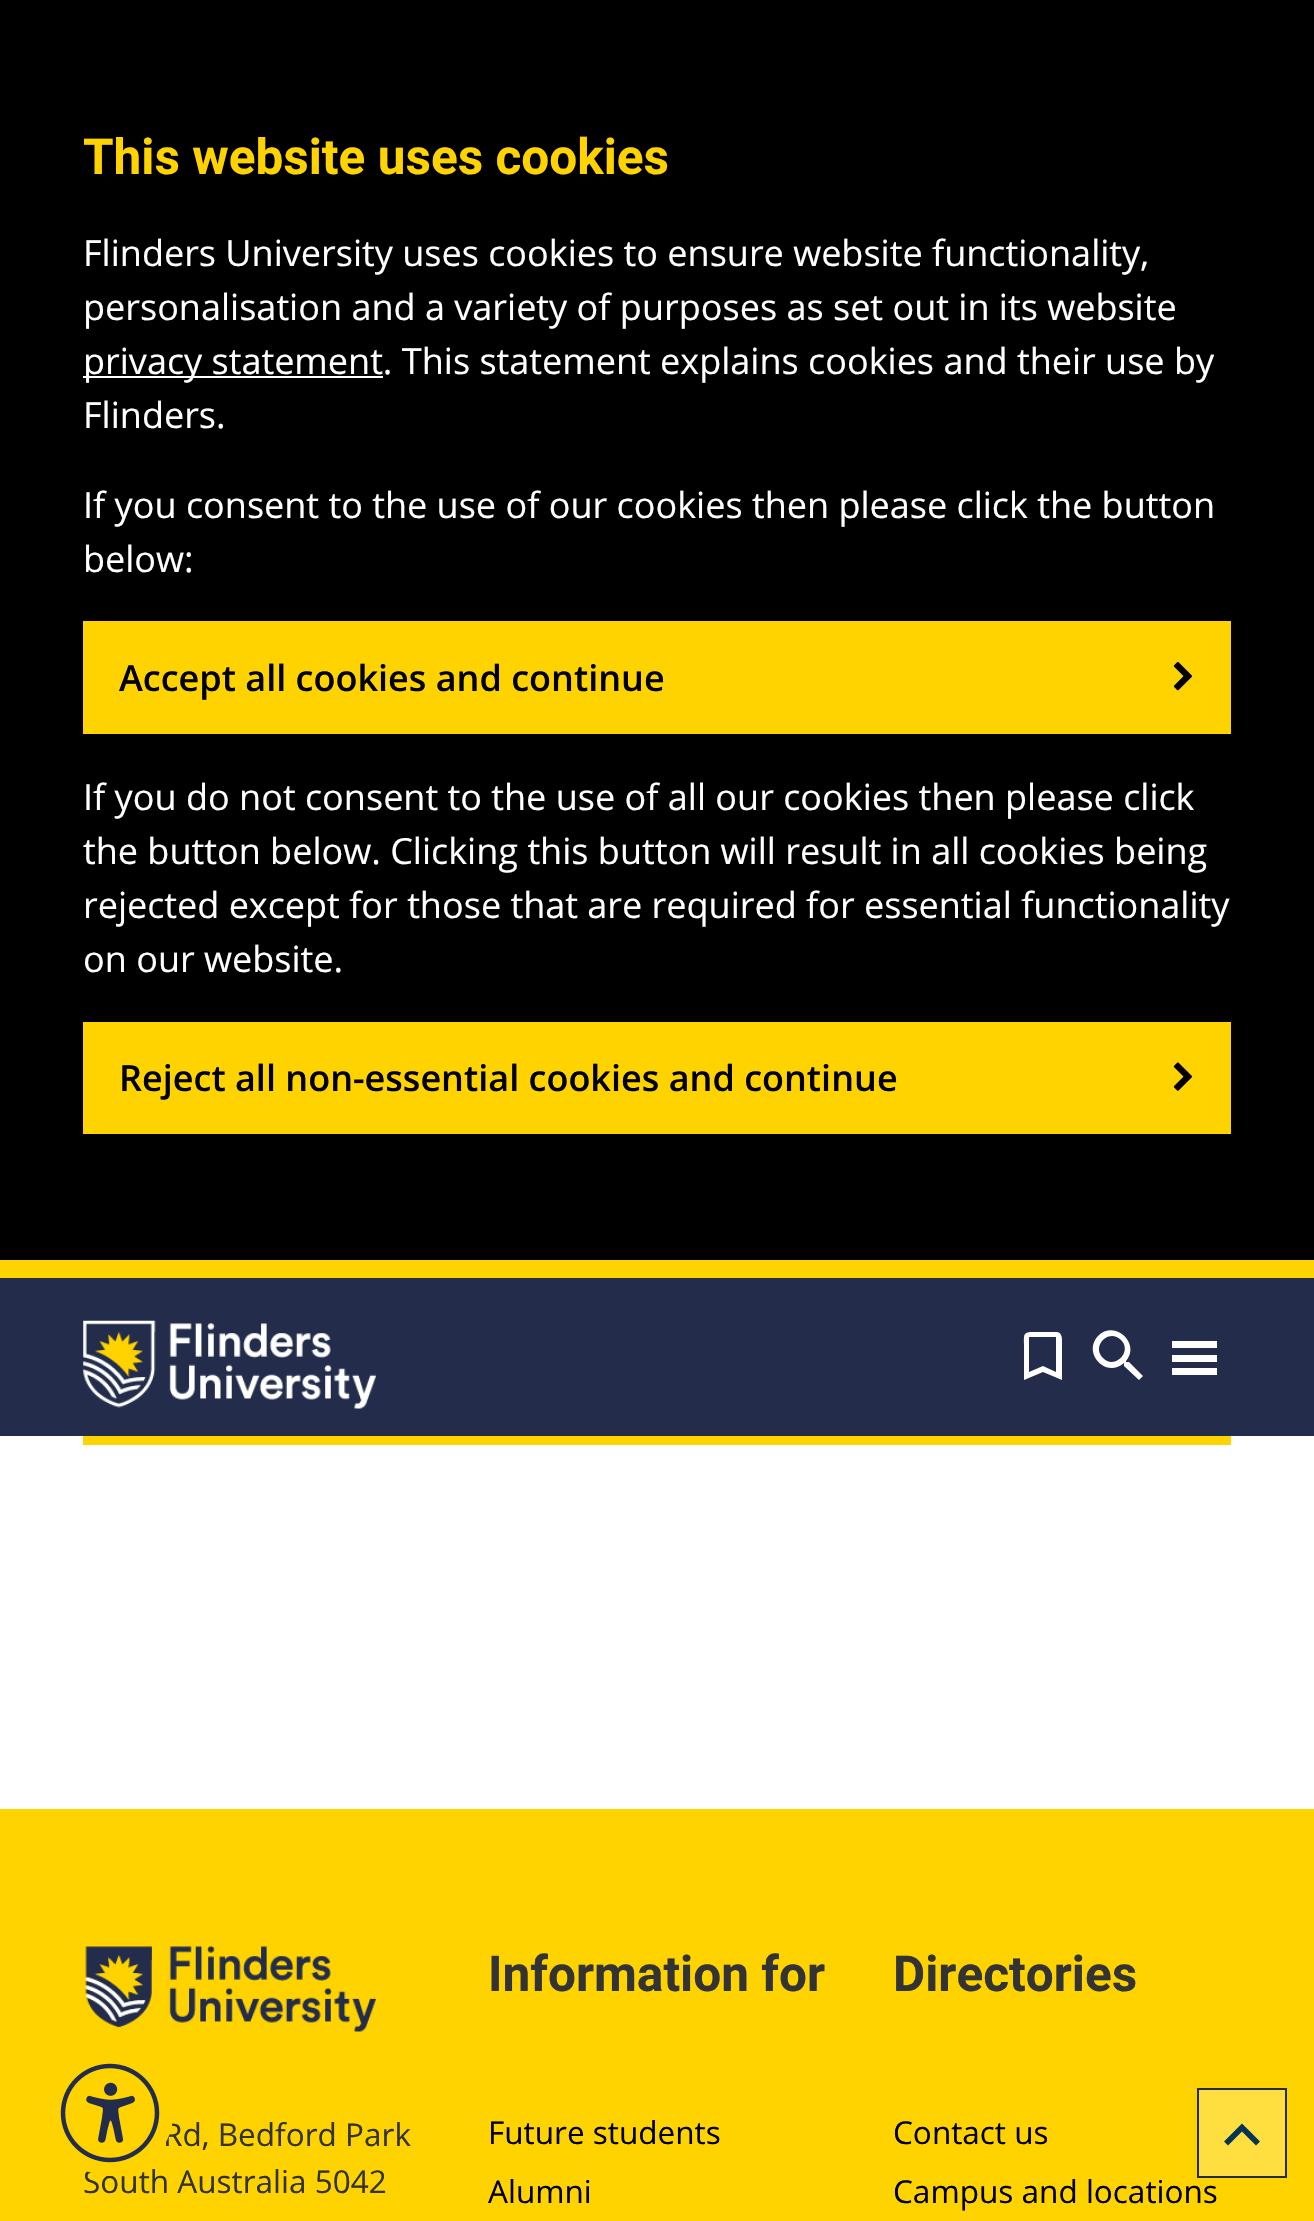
void draw(SkCanvas* canvas) {
  SkPaint paint;
  paint.setAntiAlias(true);
  auto face = [&](const char* family, int weight, float size, bool italic = false) {
    SkFontStyle style(weight, SkFontStyle::kNormal_Width,
      italic ? SkFontStyle::kItalic_Slant : SkFontStyle::kUpright_Slant);
    SkFont result(fontMgr->matchFamilyStyle(family, style), size);
    result.setSubpixel(true);
    return result;
  };
  auto paste = [&](const char* path, float x, float y, float w, float h) {
    auto image = SkImages::DeferredFromEncodedData(SkData::MakeFromFileName(path));
    canvas->drawImageRect(image, SkRect::MakeXYWH(x, y, w, h), SkSamplingOptions());
  };
  auto shape = [&](const char* data, bool evenOdd = false) {
    SkPath result = *SkParsePath::FromSVGString(data);
    if (evenOdd) result.setFillType(SkPathFillType::kEvenOdd);
    return result;
  };
  canvas->clear(0xffffffff);
  {
    const struct { float x, y, w, h; SkColor color; } items[] = {
      {0, 0, 1314, 1260, 0xff000000},
      {83, 376, 300, 2, 0xffffffff},
      {83, 621, 1148, 113, 0xffffd300},
    };
    for (auto [x, y, w, h, color] : items) {
      paint.setColor(color);
      canvas->drawRect(SkRect::MakeXYWH(x, y, w, h), paint);
    }
  }
  paste("img/1.png", 1173, 662, 19, 29);
  canvas->drawRect(SkRect::MakeXYWH(83, 1022, 1148, 112), paint);
  paste("img/2.png", 1173, 1062, 19, 29);
  canvas->drawRect(SkRect::MakeXYWH(0, 1260, 1314, 18), paint);
  paint.setColor(0xff232d4b);
  canvas->drawRect(SkRect::MakeXYWH(0, 1278, 1314, 158), paint);
  paste("img/3.png", 83, 1320, 293, 89);
  paint.setColor(0xffffffff);
  canvas->drawPath(shape("M1056 1372V1337H1029V1372L1043 1366ZM1056 1332C1063 1332 1062 1340 1062 1344V1380L1043 1372L1024 1380V1344C1024 1334 1023 1332 1034 1332Z"), paint);
  canvas->drawPath(shape("M1103 1358C1114 1370 1133 1352 1121 1340C1109 1328 1091 1346 1103 1358ZM1129 1362L1143 1376L1139 1380L1124 1366V1364V1363C1106 1379 1082 1353 1098 1336C1115 1319 1141 1344 1126 1361V1362Z"), paint);
  {
    const struct { float x, y, w, h; SkColor color; } items[] = {
      {1172, 1341, 45, 7, 0xffffffff},
      {1172, 1355, 45, 7, 0xffffffff},
      {1172, 1368, 45, 7, 0xffffffff},
      {83, 1436, 1148, 9, 0xffffd300},
      {0, 1809, 1314, 412, 0xffffd300},
    };
    for (auto [x, y, w, h, color] : items) {
      paint.setColor(color);
      canvas->drawRect(SkRect::MakeXYWH(x, y, w, h), paint);
    }
  }
  paste("img/4.png", 85, 1946, 291, 86);
  paint.setColor(0xffffde40);
  canvas->drawRect(SkRect::MakeXYWH(1198, 2089, 88, 88), paint);
  paint.setStroke(true);
  paint.setStrokeWidth(2);
  paint.setColor(0xff232d4b);
  canvas->drawRect(SkRect::MakeXYWH(1198, 2089, 88, 88), paint);
  paint.setStroke(false);
  paint.setColor(0xff013554);
  canvas->drawPath(shape("M1228 2145.5L1224 2141.5L1242 2123.5L1260 2141.5L1256 2145.5L1242 2131.5Z"), paint);
  auto f0 = face("Roboto", 700, 49.5f);
  paint.setColor(0xffffd300);
  canvas->drawString("This website uses cookies", 83, 174, f0, paint);
  auto f1 = face("Open Sans", 400, 36);
  paint.setColor(0xffffffff);
  {
    const struct { const char* s; float x, y; } items[] = {
      {"Flinders University uses cookies to ensure website functionality,", 83, 266},
      {"personalisation and a variety of purposes as set out in its website", 83, 320},
      {"privacy statement. This statement explains cookies and their use by", 83, 374},
      {"Flinders.", 83, 428},
      {"If you consent to the use of our cookies then please click the button", 83, 518},
      {"below:", 83, 572},
    };
    for (auto [s, x, y] : items) {
      canvas->drawString(s, x, y, f1, paint);
    }
  }
  auto f2 = face("Open Sans", 600, 36);
  paint.setColor(0xff000000);
  canvas->drawString("Accept all cookies and continue", 119, 691, f2, paint);
  paint.setColor(0xffffffff);
  {
    const struct { const char* s; float x, y; } items[] = {
      {"If you do not consent to the use of all our cookies then please click", 83, 810},
      {"the button below. Clicking this button will result in all cookies being", 83, 864},
      {"rejected except for those that are required for essential functionality", 83, 918},
      {"on our website.", 83, 972},
    };
    for (auto [s, x, y] : items) {
      canvas->drawString(s, x, y, f1, paint);
    }
  }
  paint.setColor(0xff000000);
  canvas->drawString("Reject all non-essential cookies and continue", 119, 1091, f2, paint);
  auto f3 = face("Open Sans", 400, 31.5f);
  paint.setColor(0xff333333);
  canvas->drawString("Rd, Bedford Park", 163, 2146, f3, paint);
  canvas->drawString("South Australia 5042", 83, 2193, f3, paint);
  canvas->drawString("Information for", 488, 1991, f0, paint);
  paint.setColor(0xff000000);
  canvas->drawString("Future students", 488, 2144, f3, paint);
  canvas->drawString("Alumni", 488, 2203, f3, paint);
  paint.setColor(0xff333333);
  canvas->drawString("Directories", 893, 1991, f0, paint);
  paint.setColor(0xff000000);
  canvas->drawString("Contact us", 893, 2144, f3, paint);
  canvas->drawString("Campus and locations", 893, 2203, f3, paint);
  paste("img/5.png", 60, 2063, 113, 113);
}
